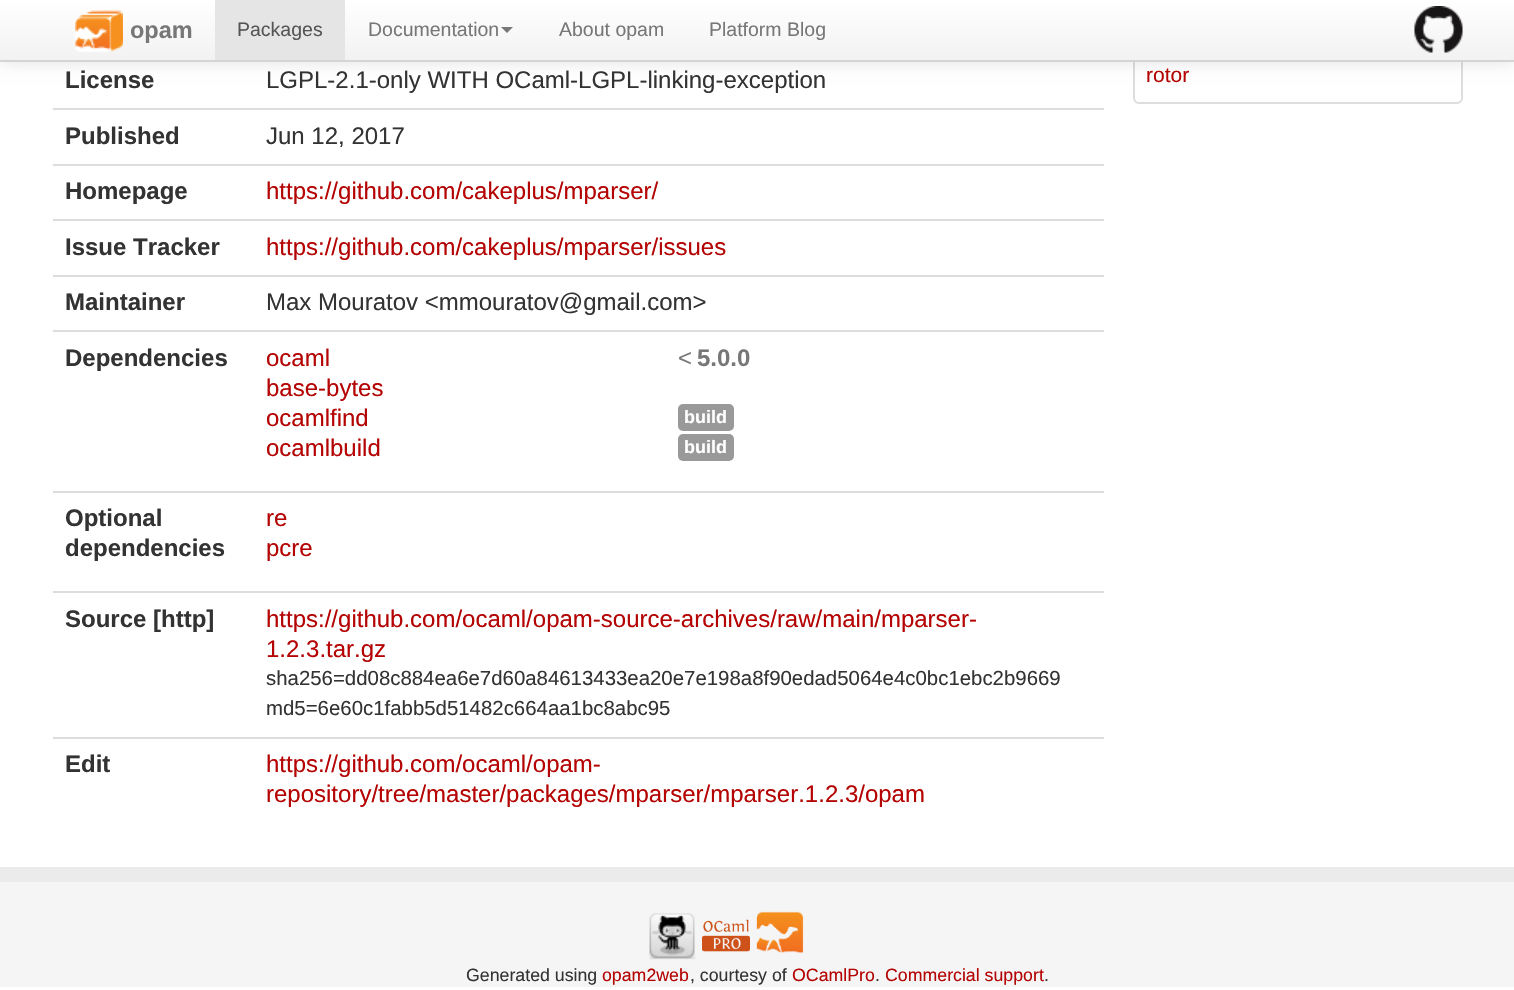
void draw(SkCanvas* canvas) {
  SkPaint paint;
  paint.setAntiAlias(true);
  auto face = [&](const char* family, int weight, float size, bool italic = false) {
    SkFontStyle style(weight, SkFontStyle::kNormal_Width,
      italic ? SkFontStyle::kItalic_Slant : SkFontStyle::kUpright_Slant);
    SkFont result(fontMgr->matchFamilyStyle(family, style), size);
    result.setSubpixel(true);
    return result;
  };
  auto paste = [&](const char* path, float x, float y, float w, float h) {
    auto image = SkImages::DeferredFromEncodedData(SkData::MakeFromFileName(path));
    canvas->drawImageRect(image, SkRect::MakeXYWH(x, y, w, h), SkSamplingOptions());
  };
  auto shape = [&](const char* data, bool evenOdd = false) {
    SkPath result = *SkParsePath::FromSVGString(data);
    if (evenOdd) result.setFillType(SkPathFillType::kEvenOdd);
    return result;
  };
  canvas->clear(0xffffffff);
  paint.setStroke(true);
  paint.setStrokeWidth(2);
  paint.setColor(0xffdddddd);
  canvas->drawRoundRect(SkRect::MakeXYWH(1134, -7, 328, 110), 5, 5, paint);
  paint.setStroke(false);
  paint.setColor(0x1a000000);
  paint.setMaskFilter(SkMaskFilter::MakeBlur(kNormal_SkBlurStyle, 7.5f));
  canvas->drawRect(SkRect::MakeXYWH(0, 2, 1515, 61), paint);
  paint.setMaskFilter(nullptr);
  {
    const SkColor colors[] = {0xffffffff, 0xfff2f2f2};
    const float stops[] = {0, 1};
    const SkPoint ends[] = {{758, 0}, {758, 60}};
    paint.setShader(SkGradientShader::MakeLinear(ends, colors, stops, 2, SkTileMode::kClamp));
    paint.setAlpha(255);
  }
  canvas->drawRect(SkRect::MakeXYWH(0, 0, 1514, 60), paint);
  paint.setShader(nullptr);
  paint.setColor(0xffd4d4d4);
  canvas->drawRect(SkRect::MakeXYWH(0, 60, 1514, 2), paint);
  paste("img/1.png", 75, 10, 48, 42);
  paint.setColor(0xffe5e5e5);
  canvas->drawRect(SkRect::MakeXYWH(215, 0, 130, 60), paint);
  paint.setColor(0xff777777);
  canvas->drawPath(shape("M501 27H513L507 33Z"), paint);
  paste("img/2.png", 1414, 6, 49, 47);
  {
    const struct { float x, y, w, h; SkColor color; } items[] = {
      {53, 108, 1051, 2, 0xffdddddd},
      {53, 164, 1051, 2, 0xffdddddd},
      {53, 219, 1051, 2, 0xffdddddd},
      {53, 275, 1051, 2, 0xffdddddd},
      {53, 330, 1051, 2, 0xffdddddd},
    };
    for (auto [x, y, w, h, color] : items) {
      paint.setColor(color);
      canvas->drawRect(SkRect::MakeXYWH(x, y, w, h), paint);
    }
  }
  paint.setColor(0xff999999);
  canvas->drawRoundRect(SkRect::MakeXYWH(678, 404, 56, 27), 5, 5, paint);
  canvas->drawRoundRect(SkRect::MakeXYWH(678, 434, 56, 27), 5, 5, paint);
  {
    const struct { float x, y, w, h; SkColor color; } items[] = {
      {53, 491, 1051, 2, 0xffdddddd},
      {53, 591, 1051, 2, 0xffdddddd},
      {53, 737, 1051, 2, 0xffdddddd},
      {0, 882, 1514, 105, 0xfff5f5f5},
      {0, 867, 1514, 15, 0xffebebeb},
    };
    for (auto [x, y, w, h, color] : items) {
      paint.setColor(color);
      canvas->drawRect(SkRect::MakeXYWH(x, y, w, h), paint);
    }
  }
  paste("img/3.png", 649, 913, 47, 47);
  paste("img/4.png", 702, 919, 48, 33);
  paste("img/5.png", 756, 911, 48, 43);
  auto f0 = face("Liberation Sans", 700, 23.5f);
  paint.setColor(0xff777777);
  canvas->drawString("opam", 130, 38, f0, paint);
  auto f1 = face("Liberation Sans", 400, 19.5f);
  paint.setColor(0xff555555);
  canvas->drawString("Packages", 237, 36, f1, paint);
  paint.setColor(0xff777777);
  {
    const struct { const char* s; float x, y; } items[] = {
      {"Documentation", 368, 36},
      {"About opam", 559, 36},
      {"Platform Blog", 709, 36},
    };
    for (auto [s, x, y] : items) {
      canvas->drawString(s, x, y, f1, paint);
    }
  }
  auto f2 = face("Liberation Sans", 700, 24);
  paint.setColor(0xff333333);
  canvas->drawString("License", 65, 88, f2, paint);
  auto f3 = face("Liberation Sans", 400, 24);
  canvas->drawString("LGPL-2.1-only WITH OCaml-LGPL-linking-exception", 266, 88, f3, paint);
  canvas->drawString("Published", 65, 144, f2, paint);
  canvas->drawString("Jun 12, 2017", 266, 144, f3, paint);
  canvas->drawString("Homepage", 65, 199, f2, paint);
  paint.setColor(0xffb40404);
  canvas->drawString("https://github.com/cakeplus/mparser/", 266, 199, f3, paint);
  paint.setColor(0xff333333);
  canvas->drawString("Issue Tracker", 65, 255, f2, paint);
  paint.setColor(0xffb40404);
  canvas->drawString("https://github.com/cakeplus/mparser/issues", 266, 255, f3, paint);
  paint.setColor(0xff333333);
  canvas->drawString("Maintainer", 65, 310, f2, paint);
  canvas->drawString("Max Mouratov <mmouratov@gmail.com>", 266, 310, f3, paint);
  canvas->drawString("Dependencies", 65, 366, f2, paint);
  paint.setColor(0xffb40404);
  canvas->drawString("ocaml", 266, 366, f3, paint);
  paint.setColor(0xff777777);
  canvas->drawString("<", 678, 366, f3, paint);
  canvas->drawString("5.0.0", 697, 366, f2, paint);
  paint.setColor(0xffb40404);
  canvas->drawString("base-bytes", 266, 396, f3, paint);
  canvas->drawString("ocamlfind", 266, 426, f3, paint);
  auto f4 = face("Liberation Sans", 700, 18);
  paint.setColor(0xffffffff);
  canvas->drawString("build", 684, 423, f4, paint);
  paint.setColor(0xffb40404);
  canvas->drawString("ocamlbuild", 266, 456, f3, paint);
  paint.setColor(0xffffffff);
  canvas->drawString("build", 684, 453, f4, paint);
  paint.setColor(0xff333333);
  canvas->drawString("Optional", 65, 526, f2, paint);
  canvas->drawString("dependencies", 65, 556, f2, paint);
  paint.setColor(0xffb40404);
  canvas->drawString("re", 266, 526, f3, paint);
  canvas->drawString("pcre", 266, 556, f3, paint);
  paint.setColor(0xff333333);
  canvas->drawString("Source [http]", 65, 627, f2, paint);
  paint.setColor(0xffb40404);
  canvas->drawString("https://github.com/ocaml/opam-source-archives/raw/main/mparser-", 266, 627, f3, paint);
  canvas->drawString("1.2.3.tar.gz", 266, 657, f3, paint);
  auto f5 = face("Liberation Sans", 400, 20.4f);
  paint.setColor(0xff333333);
  canvas->drawString("sha256=dd08c884ea6e7d60a84613433ea20e7e198a8f90edad5064e4c0bc1ebc2b9669", 266, 685, f5, paint);
  canvas->drawString("md5=6e60c1fabb5d51482c664aa1bc8abc95", 266, 715, f5, paint);
  canvas->drawString("Edit", 65, 772, f2, paint);
  paint.setColor(0xffb40404);
  canvas->drawString("https://github.com/ocaml/opam-", 266, 772, f3, paint);
  canvas->drawString("repository/tree/master/packages/mparser/mparser.1.2.3/opam", 266, 802, f3, paint);
  auto f6 = face("Liberation Sans", 400, 21);
  canvas->drawString("rotor", 1146, 82, f6, paint);
  auto f7 = face("Liberation Sans", 400, 17.75f);
  paint.setColor(0xff333333);
  canvas->drawString("Generated using", 466, 981, f7, paint);
  paint.setColor(0xffb40404);
  canvas->drawString("opam2web", 602, 981, f7, paint);
  paint.setColor(0xff333333);
  canvas->drawString(", courtesy of", 690, 981, f7, paint);
  paint.setColor(0xffb40404);
  canvas->drawString("OCamlPro", 792, 981, f7, paint);
  paint.setColor(0xff333333);
  canvas->drawString(".", 875, 981, f7, paint);
  paint.setColor(0xffb40404);
  canvas->drawString("Commercial support", 885, 981, f7, paint);
  paint.setColor(0xff333333);
  canvas->drawString(".", 1044, 981, f7, paint);
}
